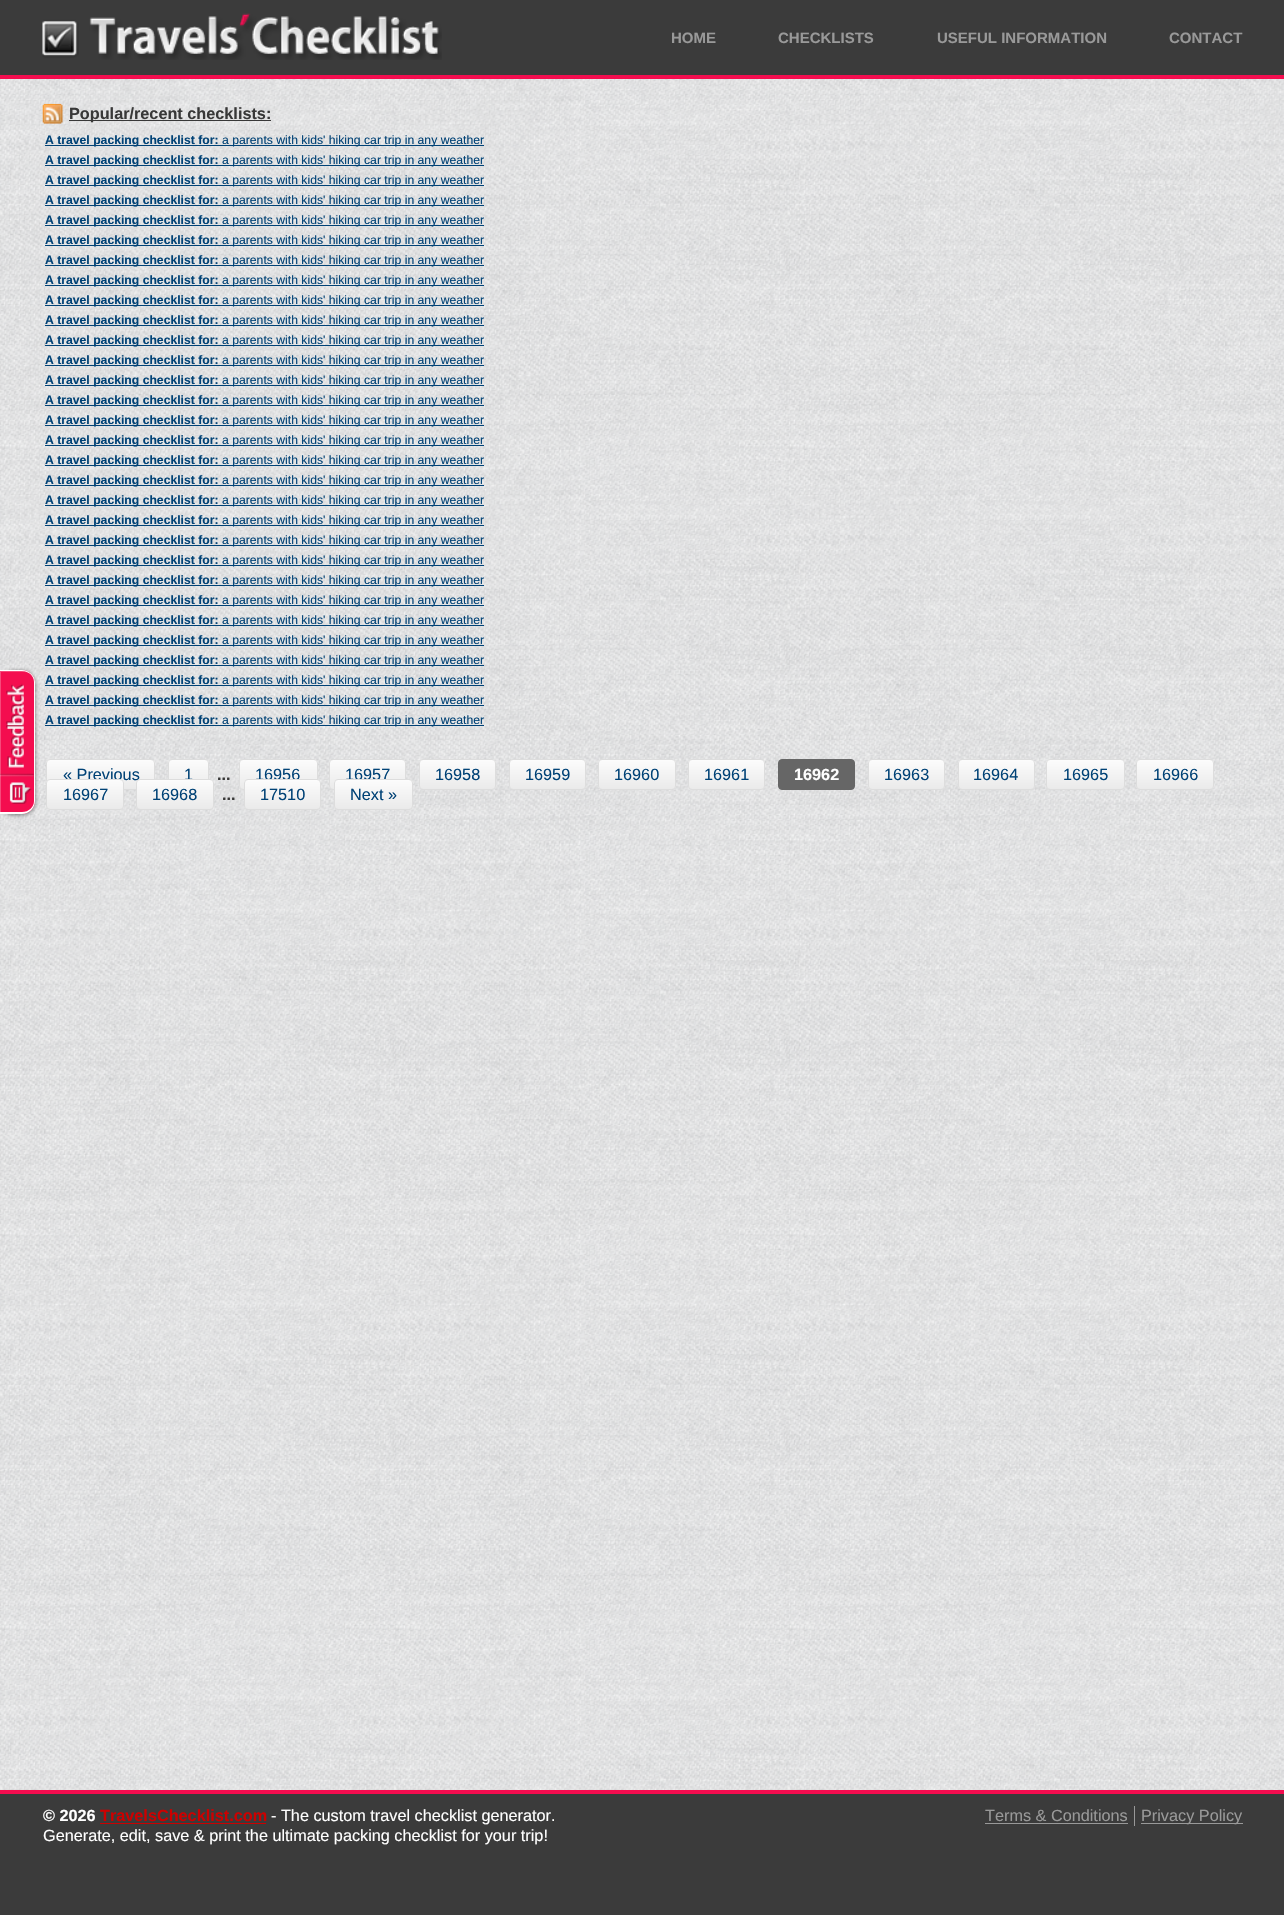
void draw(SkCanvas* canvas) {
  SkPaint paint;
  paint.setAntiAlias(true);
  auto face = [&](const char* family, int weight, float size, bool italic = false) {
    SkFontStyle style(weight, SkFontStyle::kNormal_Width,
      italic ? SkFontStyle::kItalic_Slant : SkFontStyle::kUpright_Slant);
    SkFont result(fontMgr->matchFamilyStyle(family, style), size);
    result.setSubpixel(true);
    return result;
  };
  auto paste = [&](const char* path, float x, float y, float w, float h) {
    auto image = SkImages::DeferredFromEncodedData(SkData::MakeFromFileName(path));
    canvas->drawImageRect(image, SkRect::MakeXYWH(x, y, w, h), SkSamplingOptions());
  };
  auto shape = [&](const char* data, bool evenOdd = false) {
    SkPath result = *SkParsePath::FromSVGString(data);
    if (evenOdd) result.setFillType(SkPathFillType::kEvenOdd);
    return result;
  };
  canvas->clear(0xffffffff);
  paste("img/1.png", 0, 79, 1284, 1711);
  paint.setColor(0x80000000);
  paint.setMaskFilter(SkMaskFilter::MakeBlur(kNormal_SkBlurStyle, 2));
  canvas->drawRoundRect(SkRect::MakeXYWH(0, 671, 35, 144), 13, 13, paint);
  paint.setMaskFilter(nullptr);
  paint.setColor(0xfff40d4f);
  canvas->drawPath(shape("M0 670H22C29 670 35 676 35 683V801C35 808 29 814 22 814H0Z"), paint);
  paint.setColor(0xfff7497a);
  canvas->drawPath(shape("M1 672H24C28 672 31 674 33 677C31 674 27 671 23 671H0V813H1Z"), paint);
  paint.setColor(0xffffffff);
  canvas->drawPath(shape("M0 670H22C29 670 35 676 35 682V801C35 808 29 814 22 814H0ZM0 671H22C29 671 34 676 34 682V801C34 807 29 812 22 812H0Z", true), paint);
  paste("img/2.png", 0, 683, 34, 121);
  paint.setColor(0xff3b3b3b);
  canvas->drawRect(SkRect::MakeXYWH(0, 0, 1284, 75), paint);
  paint.setColor(0xfff40d4f);
  canvas->drawRect(SkRect::MakeXYWH(0, 75, 1284, 4), paint);
  paste("img/3.png", 42, 13, 400, 47);
  paste("img/4.png", 42, 103, 21, 21);
  {
    const struct { float x, y, w, h; SkColor color; } items[] = {
      {69, 120, 202, 1, 0xff383838},
      {45, 145, 439, 1, 0xff004276},
      {45, 165, 439, 1, 0xff004276},
      {45, 185, 439, 1, 0xff004276},
      {45, 205, 439, 1, 0xff004276},
      {45, 225, 439, 1, 0xff004276},
      {45, 245, 439, 1, 0xff004276},
      {45, 265, 439, 1, 0xff004276},
      {45, 285, 439, 1, 0xff004276},
      {45, 305, 439, 1, 0xff004276},
      {45, 325, 439, 1, 0xff004276},
      {45, 345, 439, 1, 0xff004276},
      {45, 365, 439, 1, 0xff004276},
      {45, 385, 439, 1, 0xff004276},
      {45, 405, 439, 1, 0xff004276},
      {45, 425, 439, 1, 0xff004276},
      {45, 445, 439, 1, 0xff004276},
      {45, 465, 439, 1, 0xff004276},
      {45, 485, 439, 1, 0xff004276},
      {45, 505, 439, 1, 0xff004276},
      {45, 525, 439, 1, 0xff004276},
      {45, 545, 439, 1, 0xff004276},
      {45, 565, 439, 1, 0xff004276},
      {45, 585, 439, 1, 0xff004276},
      {45, 605, 439, 1, 0xff004276},
      {45, 625, 439, 1, 0xff004276},
      {45, 645, 439, 1, 0xff004276},
      {45, 665, 439, 1, 0xff004276},
      {45, 685, 439, 1, 0xff004276},
      {45, 705, 439, 1, 0xff004276},
      {45, 725, 439, 1, 0xff004276},
    };
    for (auto [x, y, w, h, color] : items) {
      paint.setColor(color);
      canvas->drawRect(SkRect::MakeXYWH(x, y, w, h), paint);
    }
  }
  canvas->save();
  canvas->clipPath(shape("M50 759H151C153 759 155 761 155 763V786C155 788 153 790 151 790H50C48 790 46 788 46 786V763C46 761 48 759 50 759Z"), true);
  {
    const SkColor colors[] = {0xfffcfcfc, 0xffeaeaea};
    const float stops[] = {0, 1};
    const SkPoint ends[] = {{101, 760}, {101, 789}};
    paint.setShader(SkGradientShader::MakeLinear(ends, colors, stops, 2, SkTileMode::kClamp));
    paint.setAlpha(255);
  }
  canvas->drawRect(SkRect::MakeXYWH(46, 760, 109, 29), paint);
  canvas->restore();
  paint.setStroke(true);
  paint.setStrokeWidth(1);
  paint.setShader(nullptr);
  paint.setColor(0xffdddddd);
  canvas->drawRoundRect(SkRect::MakeXYWH(46.5f, 759.5f, 108, 30), 3.5f, 3.5f, paint);
  canvas->save();
  canvas->clipPath(shape("M172 759H205C207 759 209 761 209 763V786C209 788 207 790 205 790H172C170 790 168 788 168 786V763C168 761 170 759 172 759Z"), true);
  paint.setStroke(false);
  {
    const SkColor colors[] = {0xfffcfcfc, 0xffeaeaea};
    const float stops[] = {0, 1};
    const SkPoint ends[] = {{188, 760}, {188, 789}};
    paint.setShader(SkGradientShader::MakeLinear(ends, colors, stops, 2, SkTileMode::kClamp));
    paint.setAlpha(255);
  }
  canvas->drawRect(SkRect::MakeXYWH(168, 760, 41, 19), paint);
  canvas->restore();
  paint.setStroke(true);
  paint.setShader(nullptr);
  paint.setColor(0xffdddddd);
  canvas->drawRoundRect(SkRect::MakeXYWH(168.5f, 759.5f, 40, 30), 3.5f, 3.5f, paint);
  canvas->save();
  canvas->clipPath(shape("M243 759H314C316 759 318 761 318 763V786C318 788 316 790 314 790H243C241 790 239 788 239 786V763C239 761 241 759 243 759Z"), true);
  paint.setStroke(false);
  {
    const SkColor colors[] = {0xfffcfcfc, 0xffeaeaea};
    const float stops[] = {0, 1};
    const SkPoint ends[] = {{278, 760}, {278, 789}};
    paint.setShader(SkGradientShader::MakeLinear(ends, colors, stops, 2, SkTileMode::kClamp));
    paint.setAlpha(255);
  }
  canvas->drawRect(SkRect::MakeXYWH(239, 760, 79, 29), paint);
  canvas->restore();
  paint.setStroke(true);
  paint.setShader(nullptr);
  paint.setColor(0xffdddddd);
  canvas->drawRoundRect(SkRect::MakeXYWH(239.5f, 759.5f, 78, 30), 3.5f, 3.5f, paint);
  canvas->save();
  canvas->clipPath(shape("M333 759H402C404 759 406 761 406 763V786C406 788 404 790 402 790H333C331 790 329 788 329 786V763C329 761 331 759 333 759Z"), true);
  paint.setStroke(false);
  {
    const SkColor colors[] = {0xfffcfcfc, 0xffeaeaea};
    const float stops[] = {0, 1};
    const SkPoint ends[] = {{368, 760}, {368, 789}};
    paint.setShader(SkGradientShader::MakeLinear(ends, colors, stops, 2, SkTileMode::kClamp));
    paint.setAlpha(255);
  }
  canvas->drawRect(SkRect::MakeXYWH(329, 760, 77, 29), paint);
  canvas->restore();
  paint.setStroke(true);
  paint.setShader(nullptr);
  paint.setColor(0xffdddddd);
  canvas->drawRoundRect(SkRect::MakeXYWH(329.5f, 759.5f, 76, 30), 3.5f, 3.5f, paint);
  canvas->save();
  canvas->clipPath(shape("M423 759H492C494 759 496 761 496 763V786C496 788 494 790 492 790H423C421 790 419 788 419 786V763C419 761 421 759 423 759Z"), true);
  paint.setStroke(false);
  {
    const SkColor colors[] = {0xfffcfcfc, 0xffeaeaea};
    const float stops[] = {0, 1};
    const SkPoint ends[] = {{458, 760}, {458, 789}};
    paint.setShader(SkGradientShader::MakeLinear(ends, colors, stops, 2, SkTileMode::kClamp));
    paint.setAlpha(255);
  }
  canvas->drawRect(SkRect::MakeXYWH(419, 760, 77, 29), paint);
  canvas->restore();
  paint.setStroke(true);
  paint.setShader(nullptr);
  paint.setColor(0xffdddddd);
  canvas->drawRoundRect(SkRect::MakeXYWH(419.5f, 759.5f, 76, 30), 3.5f, 3.5f, paint);
  canvas->save();
  canvas->clipPath(shape("M513 759H582C584 759 586 761 586 763V786C586 788 584 790 582 790H513C511 790 509 788 509 786V763C509 761 511 759 513 759Z"), true);
  paint.setStroke(false);
  {
    const SkColor colors[] = {0xfffcfcfc, 0xffeaeaea};
    const float stops[] = {0, 1};
    const SkPoint ends[] = {{548, 760}, {548, 789}};
    paint.setShader(SkGradientShader::MakeLinear(ends, colors, stops, 2, SkTileMode::kClamp));
    paint.setAlpha(255);
  }
  canvas->drawRect(SkRect::MakeXYWH(509, 760, 77, 29), paint);
  canvas->restore();
  paint.setStroke(true);
  paint.setShader(nullptr);
  paint.setColor(0xffdddddd);
  canvas->drawRoundRect(SkRect::MakeXYWH(509.5f, 759.5f, 76, 30), 3.5f, 3.5f, paint);
  canvas->save();
  canvas->clipPath(shape("M602 759H672C674 759 676 761 676 763V786C676 788 674 790 672 790H602C600 790 598 788 598 786V763C598 761 600 759 602 759Z"), true);
  paint.setStroke(false);
  {
    const SkColor colors[] = {0xfffcfcfc, 0xffeaeaea};
    const float stops[] = {0, 1};
    const SkPoint ends[] = {{637, 760}, {637, 789}};
    paint.setShader(SkGradientShader::MakeLinear(ends, colors, stops, 2, SkTileMode::kClamp));
    paint.setAlpha(255);
  }
  canvas->drawRect(SkRect::MakeXYWH(598, 760, 78, 29), paint);
  canvas->restore();
  paint.setStroke(true);
  paint.setShader(nullptr);
  paint.setColor(0xffdddddd);
  canvas->drawRoundRect(SkRect::MakeXYWH(598.5f, 759.5f, 77, 30), 3.5f, 3.5f, paint);
  canvas->save();
  canvas->clipPath(shape("M692 759H761C763 759 765 761 765 763V786C765 788 763 790 761 790H692C690 790 688 788 688 786V763C688 761 690 759 692 759Z"), true);
  paint.setStroke(false);
  {
    const SkColor colors[] = {0xfffcfcfc, 0xffeaeaea};
    const float stops[] = {0, 1};
    const SkPoint ends[] = {{726, 760}, {726, 789}};
    paint.setShader(SkGradientShader::MakeLinear(ends, colors, stops, 2, SkTileMode::kClamp));
    paint.setAlpha(255);
  }
  canvas->drawRect(SkRect::MakeXYWH(688, 760, 77, 29), paint);
  canvas->restore();
  paint.setStroke(true);
  paint.setShader(nullptr);
  paint.setColor(0xffdddddd);
  canvas->drawRoundRect(SkRect::MakeXYWH(688.5f, 759.5f, 76, 30), 3.5f, 3.5f, paint);
  paint.setStroke(false);
  paint.setColor(0xff666666);
  canvas->drawRoundRect(SkRect::MakeXYWH(778.5f, 759.5f, 76, 30), 3.5f, 3.5f, paint);
  paint.setStroke(true);
  canvas->drawRoundRect(SkRect::MakeXYWH(778.5f, 759.5f, 76, 30), 3.5f, 3.5f, paint);
  canvas->save();
  canvas->clipPath(shape("M872 759H941C943 759 945 761 945 763V786C945 788 943 790 941 790H872C870 790 868 788 868 786V763C868 761 870 759 872 759Z"), true);
  paint.setStroke(false);
  {
    const SkColor colors[] = {0xfffcfcfc, 0xffeaeaea};
    const float stops[] = {0, 1};
    const SkPoint ends[] = {{906, 760}, {906, 789}};
    paint.setShader(SkGradientShader::MakeLinear(ends, colors, stops, 2, SkTileMode::kClamp));
    paint.setAlpha(255);
  }
  canvas->drawRect(SkRect::MakeXYWH(868, 760, 77, 29), paint);
  canvas->restore();
  paint.setStroke(true);
  paint.setShader(nullptr);
  paint.setColor(0xffdddddd);
  canvas->drawRoundRect(SkRect::MakeXYWH(868.5f, 759.5f, 76, 30), 3.5f, 3.5f, paint);
  canvas->save();
  canvas->clipPath(shape("M962 759H1031C1033 759 1035 761 1035 763V786C1035 788 1033 790 1031 790H962C960 790 958 788 958 786V763C958 761 960 759 962 759Z"), true);
  paint.setStroke(false);
  {
    const SkColor colors[] = {0xfffcfcfc, 0xffeaeaea};
    const float stops[] = {0, 1};
    const SkPoint ends[] = {{996, 760}, {996, 789}};
    paint.setShader(SkGradientShader::MakeLinear(ends, colors, stops, 2, SkTileMode::kClamp));
    paint.setAlpha(255);
  }
  canvas->drawRect(SkRect::MakeXYWH(958, 760, 77, 29), paint);
  canvas->restore();
  paint.setStroke(true);
  paint.setShader(nullptr);
  paint.setColor(0xffdddddd);
  canvas->drawRoundRect(SkRect::MakeXYWH(958.5f, 759.5f, 76, 30), 3.5f, 3.5f, paint);
  canvas->save();
  canvas->clipPath(shape("M1050 759H1121C1123 759 1125 761 1125 763V786C1125 788 1123 790 1121 790H1050C1048 790 1046 788 1046 786V763C1046 761 1048 759 1050 759Z"), true);
  paint.setStroke(false);
  {
    const SkColor colors[] = {0xfffcfcfc, 0xffeaeaea};
    const float stops[] = {0, 1};
    const SkPoint ends[] = {{1086, 760}, {1086, 789}};
    paint.setShader(SkGradientShader::MakeLinear(ends, colors, stops, 2, SkTileMode::kClamp));
    paint.setAlpha(255);
  }
  canvas->drawRect(SkRect::MakeXYWH(1046, 760, 79, 29), paint);
  canvas->restore();
  paint.setStroke(true);
  paint.setShader(nullptr);
  paint.setColor(0xffdddddd);
  canvas->drawRoundRect(SkRect::MakeXYWH(1046.5f, 759.5f, 78, 30), 3.5f, 3.5f, paint);
  canvas->save();
  canvas->clipPath(shape("M1140 759H1210C1212 759 1214 761 1214 763V786C1214 788 1212 790 1210 790H1140C1138 790 1136 788 1136 786V763C1136 761 1138 759 1140 759Z"), true);
  paint.setStroke(false);
  {
    const SkColor colors[] = {0xfffcfcfc, 0xffeaeaea};
    const float stops[] = {0, 1};
    const SkPoint ends[] = {{1175, 760}, {1175, 789}};
    paint.setShader(SkGradientShader::MakeLinear(ends, colors, stops, 2, SkTileMode::kClamp));
    paint.setAlpha(255);
  }
  canvas->drawRect(SkRect::MakeXYWH(1136, 760, 78, 29), paint);
  canvas->restore();
  paint.setStroke(true);
  paint.setShader(nullptr);
  paint.setColor(0xffdddddd);
  canvas->drawRoundRect(SkRect::MakeXYWH(1136.5f, 759.5f, 77, 30), 3.5f, 3.5f, paint);
  paint.setStroke(false);
  {
    const struct { float x, y, w, h; SkColor color; } items[] = {
      {0, 1794, 1284, 121, 0xff3b3b3b},
      {0, 1790, 1284, 4, 0xfff40d4f},
      {100, 1823, 166, 1, 0xffcc0000},
      {985, 1823, 143, 1, 0xff999999},
      {1134, 1806, 1, 20, 0xff999999},
      {1141, 1823, 102, 1, 0xff999999},
    };
    for (auto [x, y, w, h, color] : items) {
      paint.setColor(color);
      canvas->drawRect(SkRect::MakeXYWH(x, y, w, h), paint);
    }
  }
  auto f0 = face("Liberation Sans", 700, 15);
  {
    const struct { const char* s; float x, y; } items[] = {
      {"HOME", 671, 43},
      {"CHECKLISTS", 778, 43},
      {"USEFUL INFORMATION", 937, 43},
      {"CONTACT", 1169, 43},
    };
    for (auto [s, x, y] : items) {
      canvas->drawString(s, x, y, f0, paint);
    }
  }
  auto f1 = face("Liberation Sans", 700, 16.25f);
  paint.setColor(0xff383838);
  canvas->drawString("Popular/recent checklists:", 69, 119, f1, paint);
  auto f2 = face("Liberation Sans", 700, 12.2f);
  paint.setColor(0xff004276);
  canvas->drawString("A travel packing checklist for:", 45, 144, f2, paint);
  auto f3 = face("Liberation Sans", 400, 12.2f);
  canvas->drawString("a parents with kids' hiking car trip in any weather", 222, 144, f3, paint);
  canvas->drawString("A travel packing checklist for:", 45, 164, f2, paint);
  canvas->drawString("a parents with kids' hiking car trip in any weather", 222, 164, f3, paint);
  canvas->drawString("A travel packing checklist for:", 45, 184, f2, paint);
  canvas->drawString("a parents with kids' hiking car trip in any weather", 222, 184, f3, paint);
  canvas->drawString("A travel packing checklist for:", 45, 204, f2, paint);
  canvas->drawString("a parents with kids' hiking car trip in any weather", 222, 204, f3, paint);
  canvas->drawString("A travel packing checklist for:", 45, 224, f2, paint);
  canvas->drawString("a parents with kids' hiking car trip in any weather", 222, 224, f3, paint);
  canvas->drawString("A travel packing checklist for:", 45, 244, f2, paint);
  canvas->drawString("a parents with kids' hiking car trip in any weather", 222, 244, f3, paint);
  canvas->drawString("A travel packing checklist for:", 45, 264, f2, paint);
  canvas->drawString("a parents with kids' hiking car trip in any weather", 222, 264, f3, paint);
  canvas->drawString("A travel packing checklist for:", 45, 284, f2, paint);
  canvas->drawString("a parents with kids' hiking car trip in any weather", 222, 284, f3, paint);
  canvas->drawString("A travel packing checklist for:", 45, 304, f2, paint);
  canvas->drawString("a parents with kids' hiking car trip in any weather", 222, 304, f3, paint);
  canvas->drawString("A travel packing checklist for:", 45, 324, f2, paint);
  canvas->drawString("a parents with kids' hiking car trip in any weather", 222, 324, f3, paint);
  canvas->drawString("A travel packing checklist for:", 45, 344, f2, paint);
  canvas->drawString("a parents with kids' hiking car trip in any weather", 222, 344, f3, paint);
  canvas->drawString("A travel packing checklist for:", 45, 364, f2, paint);
  canvas->drawString("a parents with kids' hiking car trip in any weather", 222, 364, f3, paint);
  canvas->drawString("A travel packing checklist for:", 45, 384, f2, paint);
  canvas->drawString("a parents with kids' hiking car trip in any weather", 222, 384, f3, paint);
  canvas->drawString("A travel packing checklist for:", 45, 404, f2, paint);
  canvas->drawString("a parents with kids' hiking car trip in any weather", 222, 404, f3, paint);
  canvas->drawString("A travel packing checklist for:", 45, 424, f2, paint);
  canvas->drawString("a parents with kids' hiking car trip in any weather", 222, 424, f3, paint);
  canvas->drawString("A travel packing checklist for:", 45, 444, f2, paint);
  canvas->drawString("a parents with kids' hiking car trip in any weather", 222, 444, f3, paint);
  canvas->drawString("A travel packing checklist for:", 45, 464, f2, paint);
  canvas->drawString("a parents with kids' hiking car trip in any weather", 222, 464, f3, paint);
  canvas->drawString("A travel packing checklist for:", 45, 484, f2, paint);
  canvas->drawString("a parents with kids' hiking car trip in any weather", 222, 484, f3, paint);
  canvas->drawString("A travel packing checklist for:", 45, 504, f2, paint);
  canvas->drawString("a parents with kids' hiking car trip in any weather", 222, 504, f3, paint);
  canvas->drawString("A travel packing checklist for:", 45, 524, f2, paint);
  canvas->drawString("a parents with kids' hiking car trip in any weather", 222, 524, f3, paint);
  canvas->drawString("A travel packing checklist for:", 45, 544, f2, paint);
  canvas->drawString("a parents with kids' hiking car trip in any weather", 222, 544, f3, paint);
  canvas->drawString("A travel packing checklist for:", 45, 564, f2, paint);
  canvas->drawString("a parents with kids' hiking car trip in any weather", 222, 564, f3, paint);
  canvas->drawString("A travel packing checklist for:", 45, 584, f2, paint);
  canvas->drawString("a parents with kids' hiking car trip in any weather", 222, 584, f3, paint);
  canvas->drawString("A travel packing checklist for:", 45, 604, f2, paint);
  canvas->drawString("a parents with kids' hiking car trip in any weather", 222, 604, f3, paint);
  canvas->drawString("A travel packing checklist for:", 45, 624, f2, paint);
  canvas->drawString("a parents with kids' hiking car trip in any weather", 222, 624, f3, paint);
  canvas->drawString("A travel packing checklist for:", 45, 644, f2, paint);
  canvas->drawString("a parents with kids' hiking car trip in any weather", 222, 644, f3, paint);
  canvas->drawString("A travel packing checklist for:", 45, 664, f2, paint);
  canvas->drawString("a parents with kids' hiking car trip in any weather", 222, 664, f3, paint);
  canvas->drawString("A travel packing checklist for:", 45, 684, f2, paint);
  canvas->drawString("a parents with kids' hiking car trip in any weather", 222, 684, f3, paint);
  canvas->drawString("A travel packing checklist for:", 45, 704, f2, paint);
  canvas->drawString("a parents with kids' hiking car trip in any weather", 222, 704, f3, paint);
  canvas->drawString("A travel packing checklist for:", 45, 724, f2, paint);
  canvas->drawString("a parents with kids' hiking car trip in any weather", 222, 724, f3, paint);
  auto f4 = face("Liberation Sans", 400, 16.25f);
  canvas->drawString("« Previous", 63, 780, f4, paint);
  canvas->drawString("1", 184, 780, f4, paint);
  paint.setColor(0xff383838);
  canvas->drawString("...", 217, 780, f1, paint);
  paint.setColor(0xff004276);
  {
    const struct { const char* s; float x, y; } items[] = {
      {"16956", 255, 780},
      {"16957", 345, 780},
      {"16958", 435, 780},
      {"16959", 525, 780},
      {"16960", 614, 780},
      {"16961", 704, 780},
    };
    for (auto [s, x, y] : items) {
      canvas->drawString(s, x, y, f4, paint);
    }
  }
  paint.setColor(0xffffffff);
  canvas->drawString("16962", 794, 780, f1, paint);
  paint.setColor(0xff004276);
  {
    const struct { const char* s; float x, y; } items[] = {
      {"16963", 884, 780},
      {"16964", 973, 780},
      {"16965", 1063, 780},
      {"16966", 1153, 780},
    };
    for (auto [s, x, y] : items) {
      canvas->drawString(s, x, y, f4, paint);
    }
  }
  canvas->save();
  canvas->clipPath(shape("M50 779H120C122 779 124 781 124 783V806C124 808 122 810 120 810H50C48 810 46 808 46 806V783C46 781 48 779 50 779Z"), true);
  {
    const SkColor colors[] = {0xfffcfcfc, 0xffeaeaea};
    const float stops[] = {0, 1};
    const SkPoint ends[] = {{85, 780}, {85, 809}};
    paint.setShader(SkGradientShader::MakeLinear(ends, colors, stops, 2, SkTileMode::kClamp));
    paint.setAlpha(255);
  }
  canvas->drawRect(SkRect::MakeXYWH(46, 780, 78, 29), paint);
  canvas->restore();
  paint.setStroke(true);
  paint.setShader(nullptr);
  paint.setColor(0xffdddddd);
  canvas->drawRoundRect(SkRect::MakeXYWH(46.5f, 779.5f, 77, 30), 3.5f, 3.5f, paint);
  paint.setStroke(false);
  paint.setColor(0xff004276);
  canvas->drawString("16967", 63, 800, f4, paint);
  canvas->save();
  canvas->clipPath(shape("M140 779H210C212 779 214 781 214 783V806C214 808 212 810 210 810H140C138 810 136 808 136 806V783C136 781 138 779 140 779Z"), true);
  {
    const SkColor colors[] = {0xfffcfcfc, 0xffeaeaea};
    const float stops[] = {0, 1};
    const SkPoint ends[] = {{175, 780}, {175, 809}};
    paint.setShader(SkGradientShader::MakeLinear(ends, colors, stops, 2, SkTileMode::kClamp));
    paint.setAlpha(255);
  }
  canvas->drawRect(SkRect::MakeXYWH(136, 780, 78, 29), paint);
  canvas->restore();
  paint.setStroke(true);
  paint.setShader(nullptr);
  paint.setColor(0xffdddddd);
  canvas->drawRoundRect(SkRect::MakeXYWH(136.5f, 779.5f, 77, 30), 3.5f, 3.5f, paint);
  paint.setStroke(false);
  paint.setColor(0xff004276);
  canvas->drawString("16968", 152, 800, f4, paint);
  paint.setColor(0xff383838);
  canvas->drawString("...", 222, 800, f1, paint);
  canvas->save();
  canvas->clipPath(shape("M248 779H317C319 779 321 781 321 783V806C321 808 319 810 317 810H248C246 810 244 808 244 806V783C244 781 246 779 248 779Z"), true);
  {
    const SkColor colors[] = {0xfffcfcfc, 0xffeaeaea};
    const float stops[] = {0, 1};
    const SkPoint ends[] = {{283, 780}, {283, 809}};
    paint.setShader(SkGradientShader::MakeLinear(ends, colors, stops, 2, SkTileMode::kClamp));
    paint.setAlpha(255);
  }
  canvas->drawRect(SkRect::MakeXYWH(244, 780, 77, 29), paint);
  canvas->restore();
  paint.setStroke(true);
  paint.setShader(nullptr);
  paint.setColor(0xffdddddd);
  canvas->drawRoundRect(SkRect::MakeXYWH(244.5f, 779.5f, 76, 30), 3.5f, 3.5f, paint);
  paint.setStroke(false);
  paint.setColor(0xff004276);
  canvas->drawString("17510", 260, 800, f4, paint);
  canvas->save();
  canvas->clipPath(shape("M338 779H409C411 779 413 781 413 783V806C413 808 411 810 409 810H338C336 810 334 808 334 806V783C334 781 336 779 338 779Z"), true);
  {
    const SkColor colors[] = {0xfffcfcfc, 0xffeaeaea};
    const float stops[] = {0, 1};
    const SkPoint ends[] = {{373, 780}, {373, 809}};
    paint.setShader(SkGradientShader::MakeLinear(ends, colors, stops, 2, SkTileMode::kClamp));
    paint.setAlpha(255);
  }
  canvas->drawRect(SkRect::MakeXYWH(334, 780, 79, 29), paint);
  canvas->restore();
  paint.setStroke(true);
  paint.setShader(nullptr);
  paint.setColor(0xffdddddd);
  canvas->drawRoundRect(SkRect::MakeXYWH(334.5f, 779.5f, 78, 30), 3.5f, 3.5f, paint);
  paint.setStroke(false);
  paint.setColor(0xff004276);
  canvas->drawString("Next »", 350, 800, f4, paint);
  paint.setColor(0xffffffff);
  canvas->drawString("© 2026", 43, 1821, f1, paint);
  paint.setColor(0xffcc0000);
  canvas->drawString("TravelsChecklist.com", 100, 1821, f1, paint);
  paint.setColor(0xffffffff);
  canvas->drawString("- The custom travel checklist generator.", 271, 1821, f4, paint);
  canvas->drawString("Generate, edit, save & print the ultimate packing checklist for your trip!", 43, 1841, f4, paint);
  paint.setColor(0xff999999);
  canvas->drawString("Terms & Conditions", 985, 1821, f4, paint);
  canvas->drawString("Privacy Policy", 1141, 1821, f4, paint);
}
